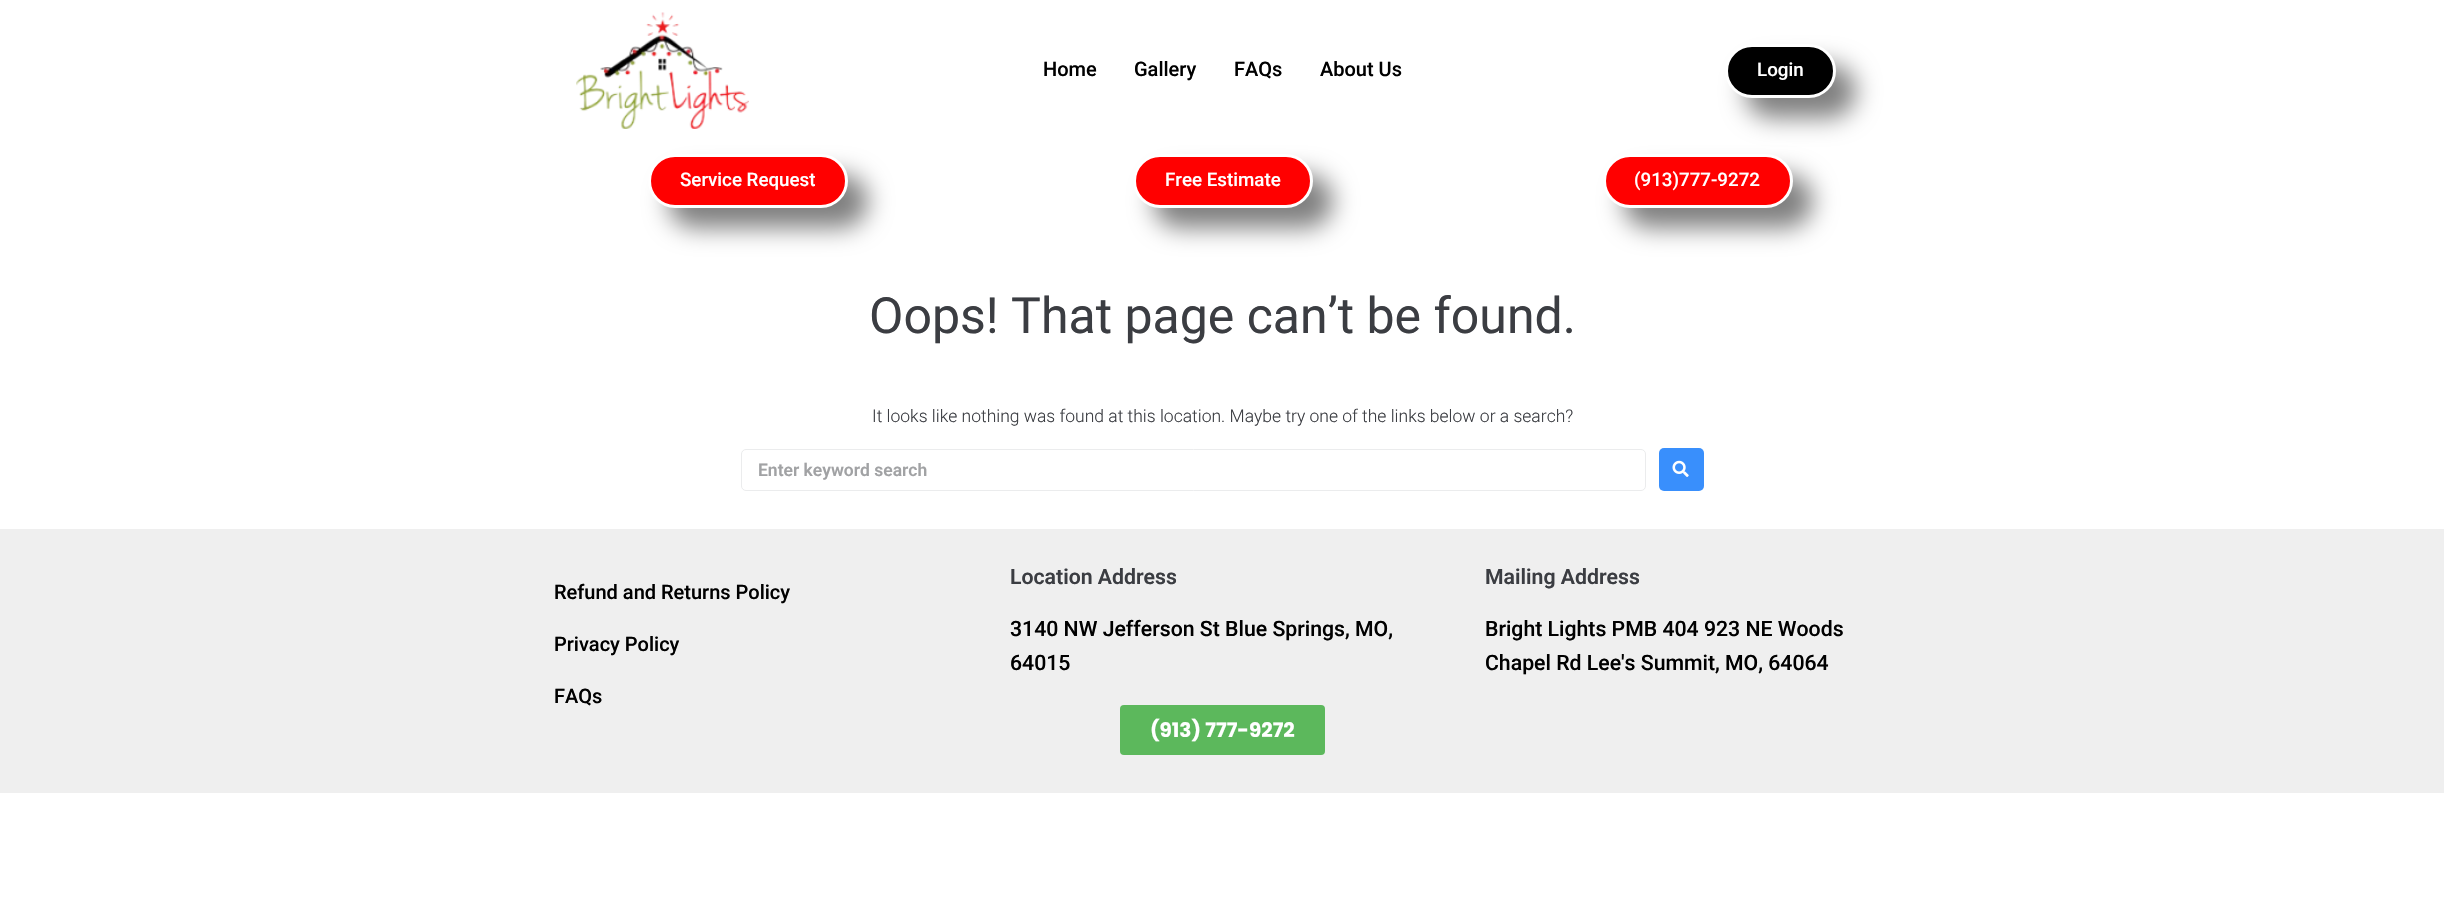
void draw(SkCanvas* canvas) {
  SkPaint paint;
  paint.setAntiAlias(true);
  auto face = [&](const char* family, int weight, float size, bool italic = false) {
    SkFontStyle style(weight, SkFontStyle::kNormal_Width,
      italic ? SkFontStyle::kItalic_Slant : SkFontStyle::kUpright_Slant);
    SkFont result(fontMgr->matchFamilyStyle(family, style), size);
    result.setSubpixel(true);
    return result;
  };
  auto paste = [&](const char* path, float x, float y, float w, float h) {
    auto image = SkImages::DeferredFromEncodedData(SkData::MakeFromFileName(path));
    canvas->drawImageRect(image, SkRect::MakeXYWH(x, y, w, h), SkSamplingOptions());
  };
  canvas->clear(0xffffffff);
  paste("img/1.png", 576, 12, 173, 117);
  paint.setColor(0x80000000);
  paint.setMaskFilter(SkMaskFilter::MakeBlur(kNormal_SkBlurStyle, 12.5f));
  canvas->drawRoundRect(SkRect::MakeXYWH(1745, 64, 111, 54), 27, 27, paint);
  paint.setMaskFilter(nullptr);
  paint.setColor(0xff000000);
  canvas->drawRoundRect(SkRect::MakeXYWH(1726.5f, 45.5f, 108, 51), 25.5f, 25.5f, paint);
  paint.setStroke(true);
  paint.setStrokeWidth(3);
  paint.setColor(0xffffffff);
  canvas->drawRoundRect(SkRect::MakeXYWH(1726.5f, 45.5f, 108, 51), 25.5f, 25.5f, paint);
  paint.setStroke(false);
  paint.setColor(0x80000000);
  paint.setMaskFilter(SkMaskFilter::MakeBlur(kNormal_SkBlurStyle, 12.5f));
  canvas->drawRoundRect(SkRect::MakeXYWH(668, 174, 200, 54), 27, 27, paint);
  paint.setMaskFilter(nullptr);
  paint.setColor(0xffff0000);
  canvas->drawRoundRect(SkRect::MakeXYWH(649.5f, 155.5f, 197, 51), 25.5f, 25.5f, paint);
  paint.setStroke(true);
  paint.setColor(0xffffffff);
  canvas->drawRoundRect(SkRect::MakeXYWH(649.5f, 155.5f, 197, 51), 25.5f, 25.5f, paint);
  paint.setStroke(false);
  paint.setColor(0x80000000);
  paint.setMaskFilter(SkMaskFilter::MakeBlur(kNormal_SkBlurStyle, 12.5f));
  canvas->drawRoundRect(SkRect::MakeXYWH(1153, 174, 180, 54), 27, 27, paint);
  paint.setMaskFilter(nullptr);
  paint.setColor(0xffff0000);
  canvas->drawRoundRect(SkRect::MakeXYWH(1134.5f, 155.5f, 177, 51), 25.5f, 25.5f, paint);
  paint.setStroke(true);
  paint.setColor(0xffffffff);
  canvas->drawRoundRect(SkRect::MakeXYWH(1134.5f, 155.5f, 177, 51), 25.5f, 25.5f, paint);
  paint.setStroke(false);
  paint.setColor(0x80000000);
  paint.setMaskFilter(SkMaskFilter::MakeBlur(kNormal_SkBlurStyle, 12.5f));
  canvas->drawRoundRect(SkRect::MakeXYWH(1623, 174, 190, 54), 27, 27, paint);
  paint.setMaskFilter(nullptr);
  paint.setColor(0xffff0000);
  canvas->drawRoundRect(SkRect::MakeXYWH(1604.5f, 155.5f, 187, 51), 25.5f, 25.5f, paint);
  paint.setStroke(true);
  paint.setColor(0xffffffff);
  canvas->drawRoundRect(SkRect::MakeXYWH(1604.5f, 155.5f, 187, 51), 25.5f, 25.5f, paint);
  paint.setStrokeWidth(1);
  paint.setColor(0xffebeced);
  canvas->drawRoundRect(SkRect::MakeXYWH(741.5f, 449.5f, 904, 41), 4.5f, 4.5f, paint);
  paint.setStroke(false);
  paint.setColor(0xff398ffc);
  canvas->drawRoundRect(SkRect::MakeXYWH(1659, 448, 45, 43), 5, 5, paint);
  paste("img/2.png", 1672, 460, 17, 17);
  paint.setColor(0xffefefef);
  canvas->drawRect(SkRect::MakeXYWH(0, 529, 2444, 264), paint);
  paint.setColor(0xff5cb85c);
  canvas->drawRoundRect(SkRect::MakeXYWH(1120, 705, 205, 50), 4, 4, paint);
  auto f0 = face("Roboto", 500, 20);
  paint.setColor(0xff000000);
  {
    const struct { const char* s; float x, y; } items[] = {
      {"Home", 1043, 76},
      {"Gallery", 1134, 76},
      {"FAQs", 1234, 76},
      {"About Us", 1320, 76},
    };
    for (auto [s, x, y] : items) {
      canvas->drawString(s, x, y, f0, paint);
    }
  }
  auto f1 = face("Roboto", 500, 18.75f);
  paint.setColor(0xffffffff);
  {
    const struct { const char* s; float x, y; } items[] = {
      {"Login", 1757, 76},
      {"Service Request", 680, 186},
      {"Free Estimate", 1165, 186},
      {"(913)777-9272", 1634, 186},
    };
    for (auto [s, x, y] : items) {
      canvas->drawString(s, x, y, f1, paint);
    }
  }
  auto f2 = face("Roboto", 400, 50);
  paint.setColor(0xff3b3d42);
  canvas->drawString("Oops! That page can’t be found.", 869, 333, f2, paint);
  auto f3 = face("Roboto", 300, 17.5f);
  canvas->drawString("It looks like nothing was found at this location. Maybe try one of the links below or a search?", 872, 422, f3, paint);
  auto f4 = face("Roboto", 600, 17.5f);
  paint.setColor(0xffa1a2a4);
  canvas->drawString("Enter keyword search", 758, 476, f4, paint);
  paint.setColor(0xff000000);
  {
    const struct { const char* s; float x, y; } items[] = {
      {"Refund and Returns Policy", 554, 599},
      {"Privacy Policy", 554, 651},
      {"FAQs", 554, 703},
    };
    for (auto [s, x, y] : items) {
      canvas->drawString(s, x, y, f0, paint);
    }
  }
  auto f5 = face("Roboto", 600, 21.25f);
  paint.setColor(0xff3b3d42);
  canvas->drawString("Location Address", 1010, 584, f5, paint);
  auto f6 = face("Roboto", 500, 21.25f);
  paint.setColor(0xff000000);
  canvas->drawString("3140 NW Jefferson St Blue Springs, MO,", 1010, 636, f6, paint);
  canvas->drawString("64015", 1010, 670, f6, paint);
  auto f7 = face("Poppins", 700, 20);
  paint.setColor(0xffffffff);
  canvas->drawString("(913) 777-9272", 1150, 737, f7, paint);
  paint.setColor(0xff3b3d42);
  canvas->drawString("Mailing Address", 1485, 584, f5, paint);
  paint.setColor(0xff000000);
  canvas->drawString("Bright Lights PMB 404 923 NE Woods", 1485, 636, f6, paint);
  canvas->drawString("Chapel Rd Lee's Summit, MO, 64064", 1485, 670, f6, paint);
}
